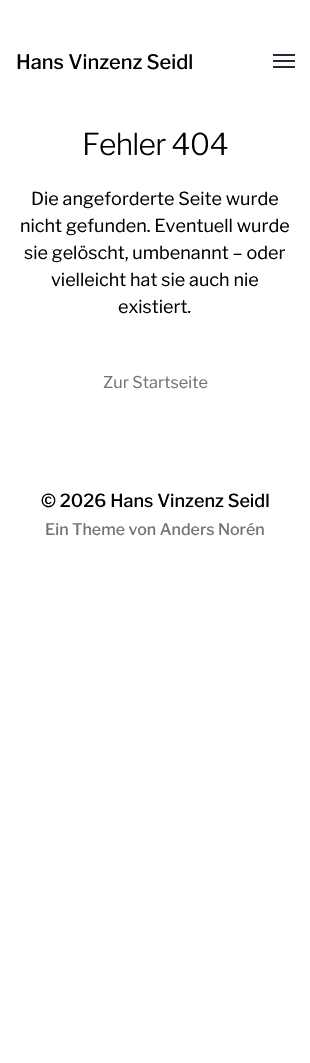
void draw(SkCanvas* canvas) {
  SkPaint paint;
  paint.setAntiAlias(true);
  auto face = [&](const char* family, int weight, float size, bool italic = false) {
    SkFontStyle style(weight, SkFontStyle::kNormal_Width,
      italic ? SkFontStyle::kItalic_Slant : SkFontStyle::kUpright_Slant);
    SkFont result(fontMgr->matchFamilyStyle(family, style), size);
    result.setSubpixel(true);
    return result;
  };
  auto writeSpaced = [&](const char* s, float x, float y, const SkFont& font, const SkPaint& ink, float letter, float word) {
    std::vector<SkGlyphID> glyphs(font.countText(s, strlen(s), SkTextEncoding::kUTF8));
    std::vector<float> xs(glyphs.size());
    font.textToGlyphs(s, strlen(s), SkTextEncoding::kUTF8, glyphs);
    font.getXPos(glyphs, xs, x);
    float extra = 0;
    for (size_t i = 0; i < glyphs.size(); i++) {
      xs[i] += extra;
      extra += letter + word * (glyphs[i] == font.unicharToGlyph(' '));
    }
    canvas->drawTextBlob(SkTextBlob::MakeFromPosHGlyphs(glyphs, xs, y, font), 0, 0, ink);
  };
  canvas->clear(0xffffffff);
  {
    const struct { float x, y, w, h; SkColor color; } items[] = {
      {273, 54, 22, 2, 0xff212a34},
      {273, 60, 22, 2, 0xff212a34},
      {273, 66, 22, 2, 0xff212a34},
    };
    for (auto [x, y, w, h, color] : items) {
      paint.setColor(color);
      canvas->drawRect(SkRect::MakeXYWH(x, y, w, h), paint);
    }
  }
  auto f0 = face("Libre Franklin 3", 100, 20);
  paint.setColor(0xff000000);
  canvas->drawString("Hans Vinzenz Seidl", 16, 69, f0, paint);
  auto f1 = face("Libre Franklin", 100, 30);
  writeSpaced("Fehler 404", 82, 155, f1, paint, -0.75f, 0);
  auto f2 = face("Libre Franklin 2", 100, 18);
  {
    const struct { const char* s; float x, y; } items[] = {
      {"Die angeforderte Seite wurde", 31, 205},
      {"nicht gefunden. Eventuell wurde", 20, 232},
      {"sie gelöscht, umbenannt – oder", 24, 259},
      {"vielleicht hat sie auch nie", 51, 286},
      {"existiert.", 118, 313},
    };
    for (auto [s, x, y] : items) {
      canvas->drawString(s, x, y, f2, paint);
    }
  }
  auto f3 = face("Libre Franklin 2", 100, 16.25f);
  paint.setColor(0xff737373);
  canvas->drawString("Zur Startseite", 103, 388, f3, paint);
  auto f4 = face("Libre Franklin 3", 100, 18);
  paint.setColor(0xff000000);
  canvas->drawString("© 2026 Hans Vinzenz Seidl", 41, 507, f4, paint);
  auto f5 = face("Libre Franklin 3", 100, 16);
  paint.setColor(0xff737373);
  canvas->drawString("Ein Theme von Anders Norén", 45, 535, f5, paint);
}
